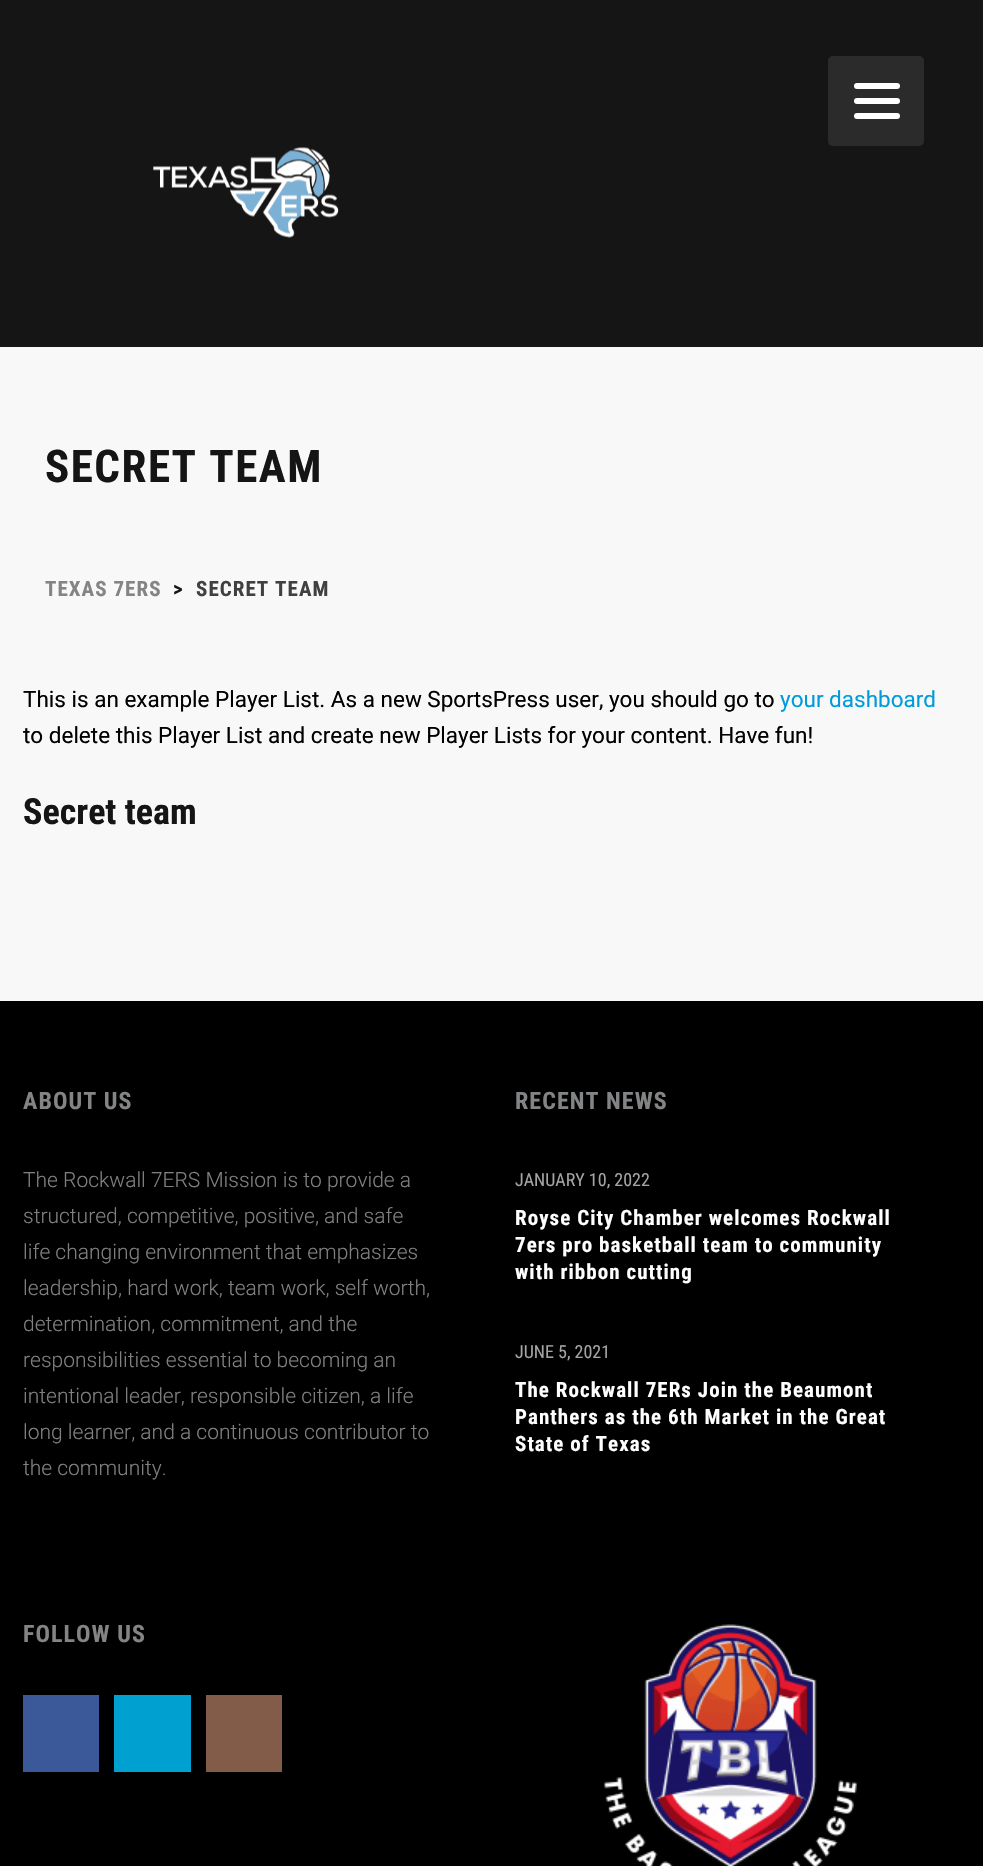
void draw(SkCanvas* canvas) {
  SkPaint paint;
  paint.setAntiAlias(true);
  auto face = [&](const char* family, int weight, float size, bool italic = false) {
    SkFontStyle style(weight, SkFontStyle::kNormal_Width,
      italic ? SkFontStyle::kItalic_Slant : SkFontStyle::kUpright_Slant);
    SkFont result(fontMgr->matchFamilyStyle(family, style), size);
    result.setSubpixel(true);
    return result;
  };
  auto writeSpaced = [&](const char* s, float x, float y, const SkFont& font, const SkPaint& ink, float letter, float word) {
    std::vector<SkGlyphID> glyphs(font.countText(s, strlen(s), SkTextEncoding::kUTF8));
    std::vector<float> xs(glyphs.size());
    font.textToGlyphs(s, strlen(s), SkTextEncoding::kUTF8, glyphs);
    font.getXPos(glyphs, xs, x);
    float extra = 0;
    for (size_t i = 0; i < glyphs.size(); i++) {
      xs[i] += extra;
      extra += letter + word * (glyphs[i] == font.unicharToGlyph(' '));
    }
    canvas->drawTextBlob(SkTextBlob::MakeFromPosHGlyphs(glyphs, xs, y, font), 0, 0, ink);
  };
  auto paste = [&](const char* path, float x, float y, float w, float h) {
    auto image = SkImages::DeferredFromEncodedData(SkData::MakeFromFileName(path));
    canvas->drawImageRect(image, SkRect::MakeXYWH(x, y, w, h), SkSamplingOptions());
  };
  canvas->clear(0xff000000);
  paint.setColor(0xfff8f8f8);
  canvas->drawRect(SkRect::MakeXYWH(0, 347, 983, 654), paint);
  paint.setColor(0xff151515);
  canvas->drawRect(SkRect::MakeXYWH(0, 0, 983, 347), paint);
  paint.setColor(0xff2b2b2c);
  canvas->drawRoundRect(SkRect::MakeXYWH(828, 56, 96, 90), 5, 5, paint);
  paint.setColor(0xffffffff);
  canvas->drawRoundRect(SkRect::MakeXYWH(854, 83, 46, 6), 3, 3, paint);
  canvas->drawRoundRect(SkRect::MakeXYWH(854, 98, 46, 6), 3, 3, paint);
  canvas->drawRoundRect(SkRect::MakeXYWH(854, 113, 46, 6), 3, 3, paint);
  paste("img/1.png", 153, 147, 186, 91);
  {
    const struct { float x, y, w, h; SkColor color; } items[] = {
      {23, 1695, 76, 77, 0xff3b5998},
      {114, 1695, 77, 77, 0xff00a0d1},
      {206, 1695, 76, 77, 0xff825c48},
    };
    for (auto [x, y, w, h, color] : items) {
      paint.setColor(color);
      canvas->drawRect(SkRect::MakeXYWH(x, y, w, h), paint);
    }
  }
  paste("img/2.png", 604, 1624, 253, 242);
  auto f0 = face("Roboto Condensed", 700, 45);
  paint.setColor(0xff151515);
  writeSpaced("SECRET TEAM", 45, 482, f0, paint, 1.5f, 0);
  auto f1 = face("Roboto Condensed", 700, 21);
  paint.setColor(0xff828486);
  writeSpaced("TEXAS 7ERS", 45, 596, f1, paint, 1.05f, 0);
  paint.setColor(0xff151515);
  writeSpaced(">", 173, 596, f1, paint, 1.05f, 0);
  paint.setColor(0xff404040);
  writeSpaced("SECRET TEAM", 196, 596, f1, paint, 1.05f, 0);
  auto f2 = face("Roboto", 400, 22.5f);
  paint.setColor(0xff000000);
  canvas->drawString("This is an example Player List. As a new SportsPress user, you should go to", 23, 707, f2, paint);
  paint.setColor(0xff009bdc);
  canvas->drawString("your dashboard", 780, 707, f2, paint);
  paint.setColor(0xff000000);
  canvas->drawString("to delete this Player List and create new Player Lists for your content. Have fun!", 23, 743, f2, paint);
  auto f3 = face("Roboto Condensed", 700, 36);
  paint.setColor(0xff151515);
  canvas->drawString("Secret team", 23, 824, f3, paint);
  auto f4 = face("Roboto Condensed", 700, 24);
  paint.setColor(0xff828486);
  writeSpaced("ABOUT US", 23, 1109, f4, paint, 1.05f, 0);
  auto f5 = face("Roboto", 300, 21);
  paint.setColor(0xff808080);
  {
    const struct { const char* s; float x, y; } items[] = {
      {"The Rockwall 7ERS Mission is to provide a", 23, 1187},
      {"structured, competitive, positive, and safe", 23, 1223},
      {"life changing environment that emphasizes", 23, 1259},
      {"leadership, hard work, team work, self worth,", 23, 1295},
      {"determination, commitment, and the", 23, 1331},
      {"responsibilities essential to becoming an", 23, 1367},
      {"intentional leader, responsible citizen, a life", 23, 1403},
      {"long learner, and a continuous contributor to", 23, 1439},
      {"the community.", 23, 1475},
    };
    for (auto [s, x, y] : items) {
      canvas->drawString(s, x, y, f5, paint);
    }
  }
  paint.setColor(0xff828486);
  writeSpaced("RECENT NEWS", 515, 1109, f4, paint, 1.05f, 0);
  auto f6 = face("Roboto Condensed", 400, 18);
  paint.setColor(0xffa4a4a4);
  canvas->drawString("JANUARY 10, 2022", 515, 1186, f6, paint);
  paint.setColor(0xffffffff);
  {
    const struct { const char* s; float x, y; } items[] = {
      {"Royse City Chamber welcomes Rockwall", 515, 1225},
      {"7ers pro basketball team to community", 515, 1252},
      {"with ribbon cutting", 515, 1279},
    };
    for (auto [s, x, y] : items) {
      writeSpaced(s, x, y, f1, paint, 1.05f, 0);
    }
  }
  paint.setColor(0xffa4a4a4);
  canvas->drawString("JUNE 5, 2021", 515, 1358, f6, paint);
  paint.setColor(0xffffffff);
  {
    const struct { const char* s; float x, y; } items[] = {
      {"The Rockwall 7ERs Join the Beaumont", 515, 1397},
      {"Panthers as the 6th Market in the Great", 515, 1424},
      {"State of Texas", 515, 1451},
    };
    for (auto [s, x, y] : items) {
      writeSpaced(s, x, y, f1, paint, 1.05f, 0);
    }
  }
  paint.setColor(0xff828486);
  writeSpaced("FOLLOW US", 23, 1642, f4, paint, 1.05f, 0);
}
